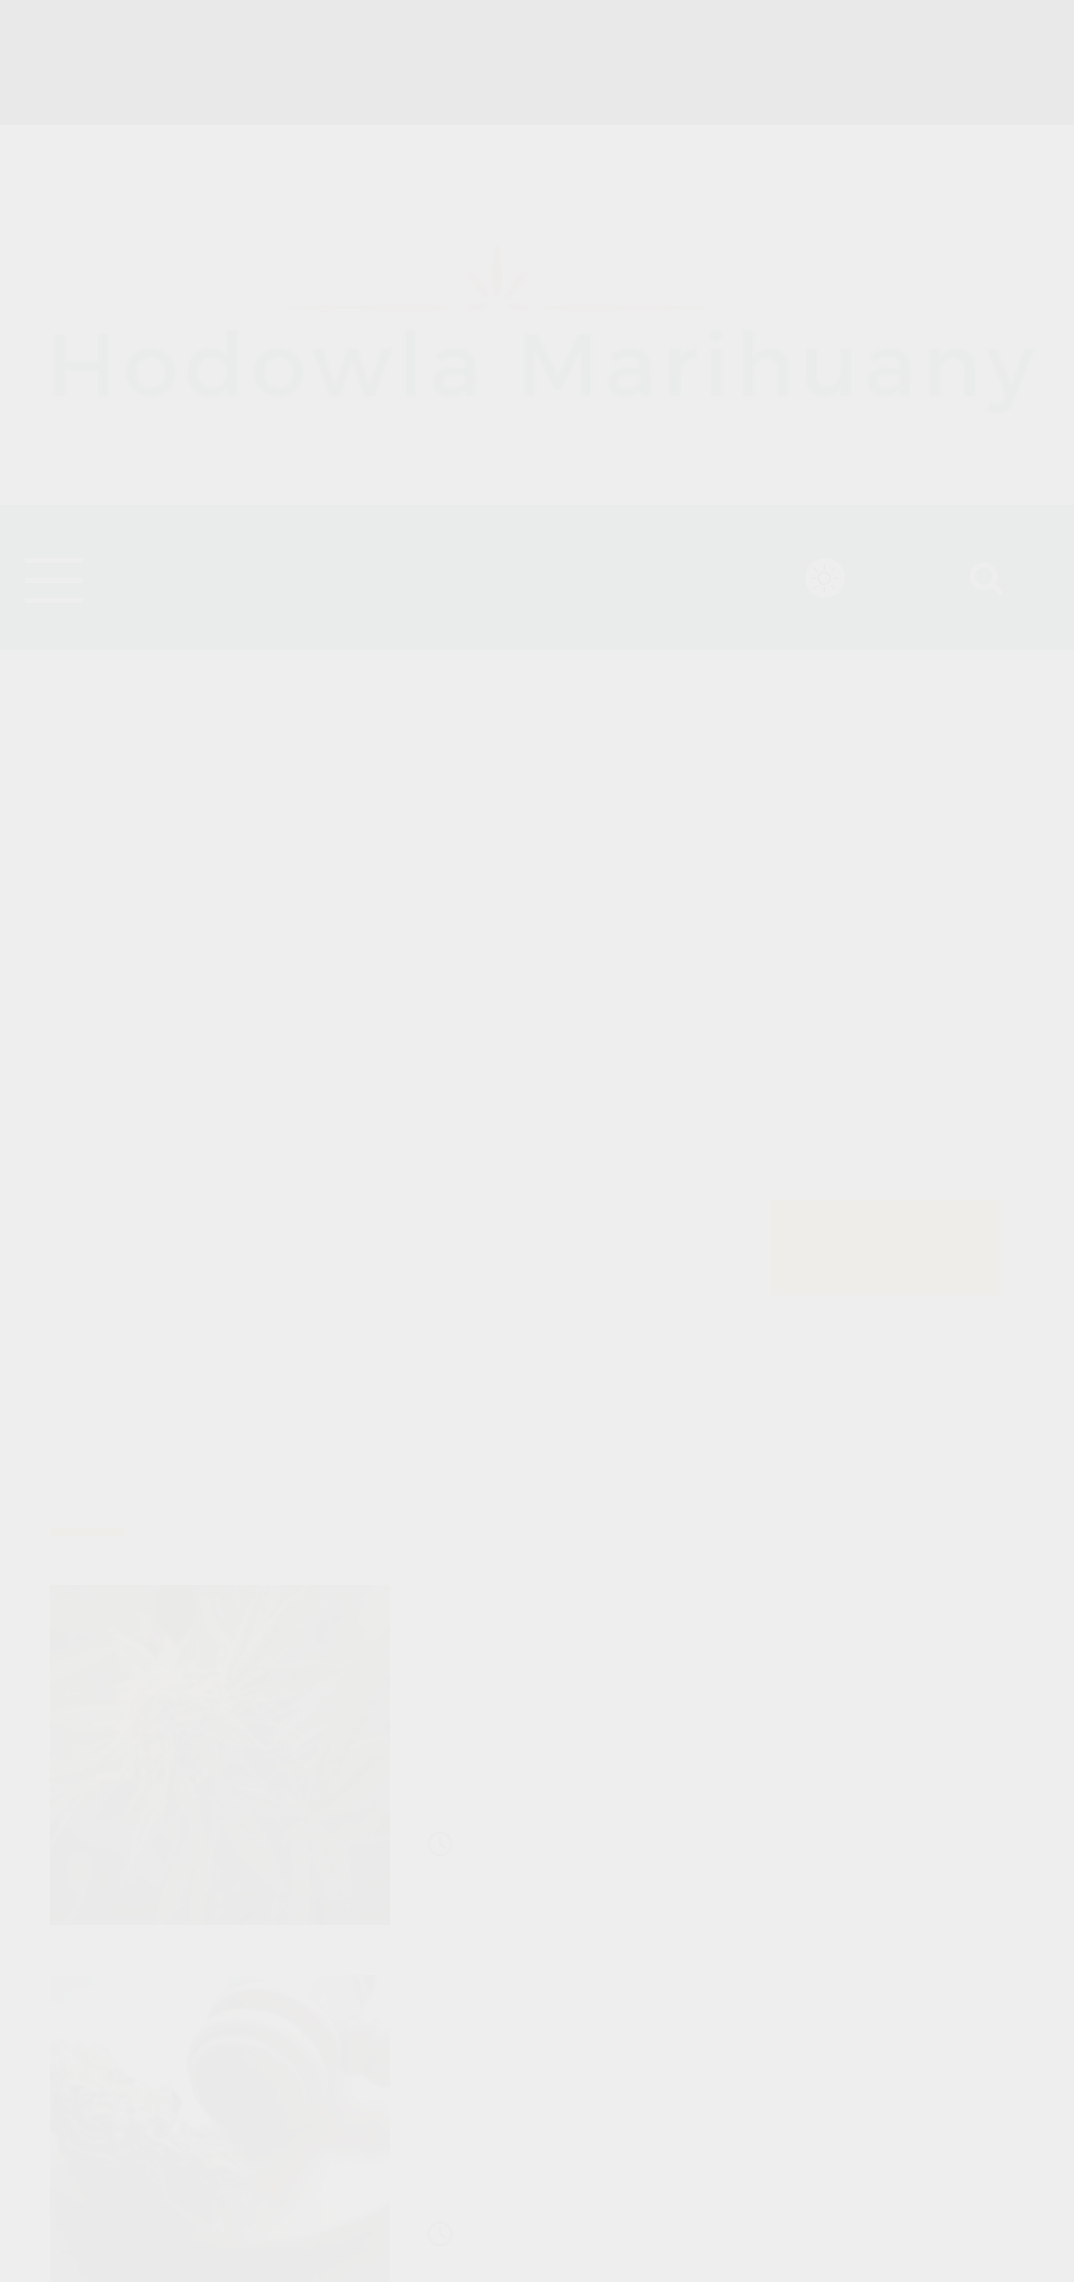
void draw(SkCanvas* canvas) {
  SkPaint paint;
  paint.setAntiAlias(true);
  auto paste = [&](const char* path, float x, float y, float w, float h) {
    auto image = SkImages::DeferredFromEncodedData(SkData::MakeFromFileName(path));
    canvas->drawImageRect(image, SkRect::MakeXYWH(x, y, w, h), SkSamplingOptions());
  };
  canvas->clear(0xffeeeeee);
  paint.setColor(0xffe9e9e9);
  canvas->drawRect(SkRect::MakeXYWH(0, 0, 1074, 125), paint);
  paste("img/1.png", 52, 244, 984, 172);
  {
    const struct { float x, y, w, h; SkColor color; } items[] = {
      {0, 505, 1074, 145, 0xffe9eceb},
      {25, 578, 58, 5, 0xffeeeeee},
      {25, 558, 58, 5, 0xffeeeeee},
      {25, 598, 58, 5, 0xffeeeeee},
    };
    for (auto [x, y, w, h, color] : items) {
      paint.setColor(color);
      canvas->drawRect(SkRect::MakeXYWH(x, y, w, h), paint);
    }
  }
  canvas->drawCircle(825, 578, 20, paint);
  paste("img/2.png", 810, 564, 29, 29);
  paste("img/3.png", 970, 562, 33, 33);
  paint.setColor(0xffeeedea);
  canvas->drawRect(SkRect::MakeXYWH(770, 1200, 230, 95), paint);
  canvas->drawRect(SkRect::MakeXYWH(50, 1528, 75, 8), paint);
  paste("img/4.png", 50, 1585, 340, 340);
  paste("img/5.png", 427, 1831, 26, 26);
  paste("img/6.png", 50, 1975, 340, 307);
  paste("img/5.png", 427, 2221, 26, 26);
}
